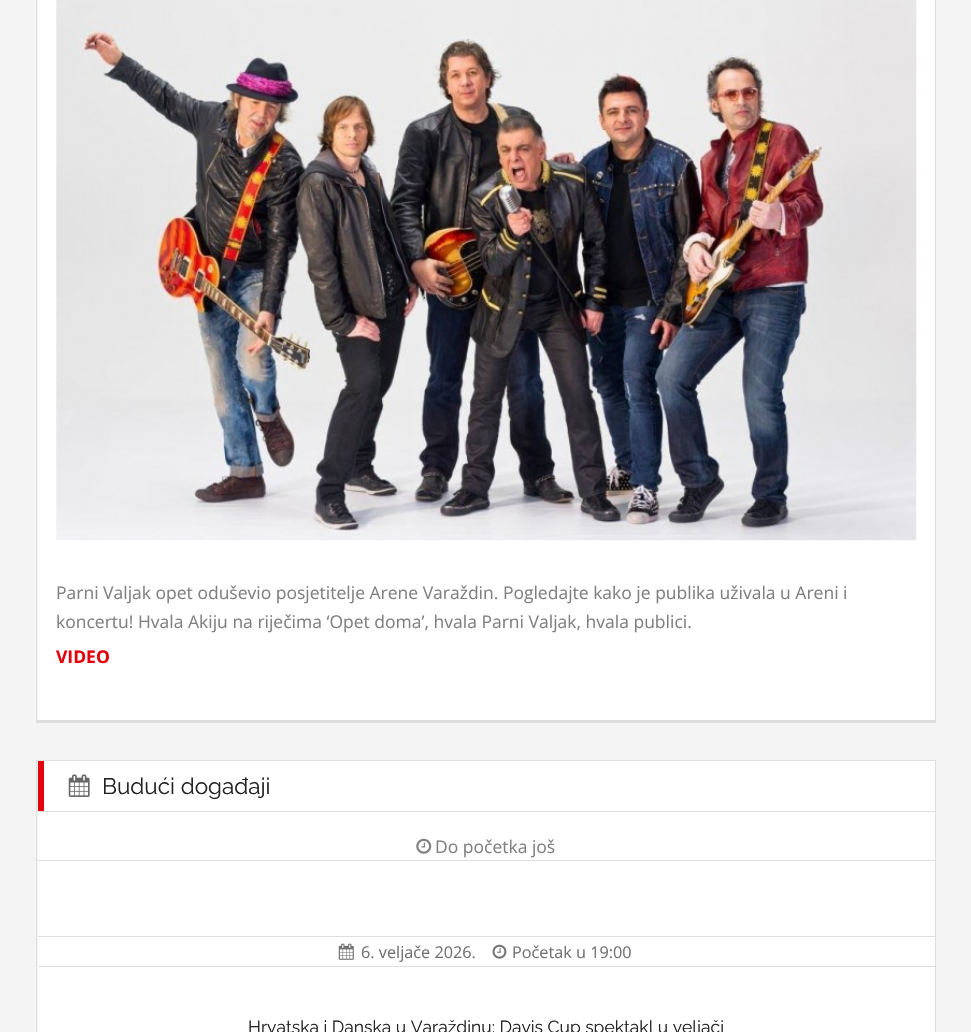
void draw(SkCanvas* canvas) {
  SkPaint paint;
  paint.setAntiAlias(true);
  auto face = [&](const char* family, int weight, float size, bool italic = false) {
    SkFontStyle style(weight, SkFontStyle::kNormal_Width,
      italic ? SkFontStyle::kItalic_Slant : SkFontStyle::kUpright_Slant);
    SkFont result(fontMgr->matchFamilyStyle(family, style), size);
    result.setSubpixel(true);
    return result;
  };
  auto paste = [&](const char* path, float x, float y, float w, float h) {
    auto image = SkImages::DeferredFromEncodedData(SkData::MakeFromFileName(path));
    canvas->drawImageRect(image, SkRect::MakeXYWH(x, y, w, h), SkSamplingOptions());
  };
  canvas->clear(0xfff4f4f4);
  {
    const struct { float x, y, w, h; SkColor color; } items[] = {
      {38, 0, 897, 720, 0xffffffff},
      {935, 0, 1, 723, 0xffdedede},
      {36, 720, 900, 3, 0xffdedede},
      {36, 0, 1, 723, 0xffdedede},
    };
    for (auto [x, y, w, h, color] : items) {
      paint.setColor(color);
      canvas->drawRect(SkRect::MakeXYWH(x, y, w, h), paint);
    }
  }
  paste("img/1.png", 56, 0, 861, 541);
  {
    const struct { float x, y, w, h; SkColor color; } items[] = {
      {38, 761, 897, 271, 0xffffffff},
      {36, 760, 900, 1, 0xffdedede},
      {935, 760, 1, 272, 0xffdedede},
      {36, 760, 1, 272, 0xffdedede},
      {38, 811, 897, 1, 0xffdddddd},
      {38, 761, 6, 50, 0xffe3000b},
    };
    for (auto [x, y, w, h, color] : items) {
      paint.setColor(color);
      canvas->drawRect(SkRect::MakeXYWH(x, y, w, h), paint);
    }
  }
  paste("img/2.png", 68, 774, 22, 23);
  paste("img/3.png", 416, 838, 16, 16);
  {
    const struct { float x, y, w, h; SkColor color; } items[] = {
      {38, 860, 897, 1, 0xffdedede},
      {38, 936, 897, 1, 0xffdedede},
      {38, 966, 897, 1, 0xffdedede},
    };
    for (auto [x, y, w, h, color] : items) {
      paint.setColor(color);
      canvas->drawRect(SkRect::MakeXYWH(x, y, w, h), paint);
    }
  }
  paste("img/4.png", 338, 943, 16, 17);
  paste("img/5.png", 492, 944, 15, 15);
  auto f0 = face("Open Sans", 400, 17.5f);
  paint.setColor(0xff808080);
  canvas->drawString("Parni Valjak opet oduševio posjetitelje Arene Varaždin. Pogledajte kako je publika uživala u Areni i", 56, 599, f0, paint);
  canvas->drawString("koncertu! Hvala Akiju na riječima ‘Opet doma’, hvala Parni Valjak, hvala publici.", 56, 628, f0, paint);
  auto f1 = face("Open Sans", 700, 17.5f);
  paint.setColor(0xffe3000b);
  canvas->drawString("VIDEO", 56, 663, f1, paint);
  auto f2 = face("Raleway", 100, 22.5f);
  paint.setColor(0xff222222);
  canvas->drawString("Budući događaji", 102, 794, f2, paint);
  paint.setColor(0xff808080);
  canvas->drawString("Do početka još", 435, 853, f0, paint);
  auto f3 = face("Open Sans", 400, 16.25f);
  paint.setColor(0xff727272);
  canvas->drawString("6. veljače 2026.", 361, 958, f3, paint);
  canvas->drawString("Početak u 19:00", 512, 958, f3, paint);
  auto f4 = face("Raleway", 100, 17.5f);
  paint.setColor(0xff222222);
  canvas->drawString("Hrvatska i Danska u Varaždinu: Davis Cup spektakl u veljači", 248, 1033, f4, paint);
}
